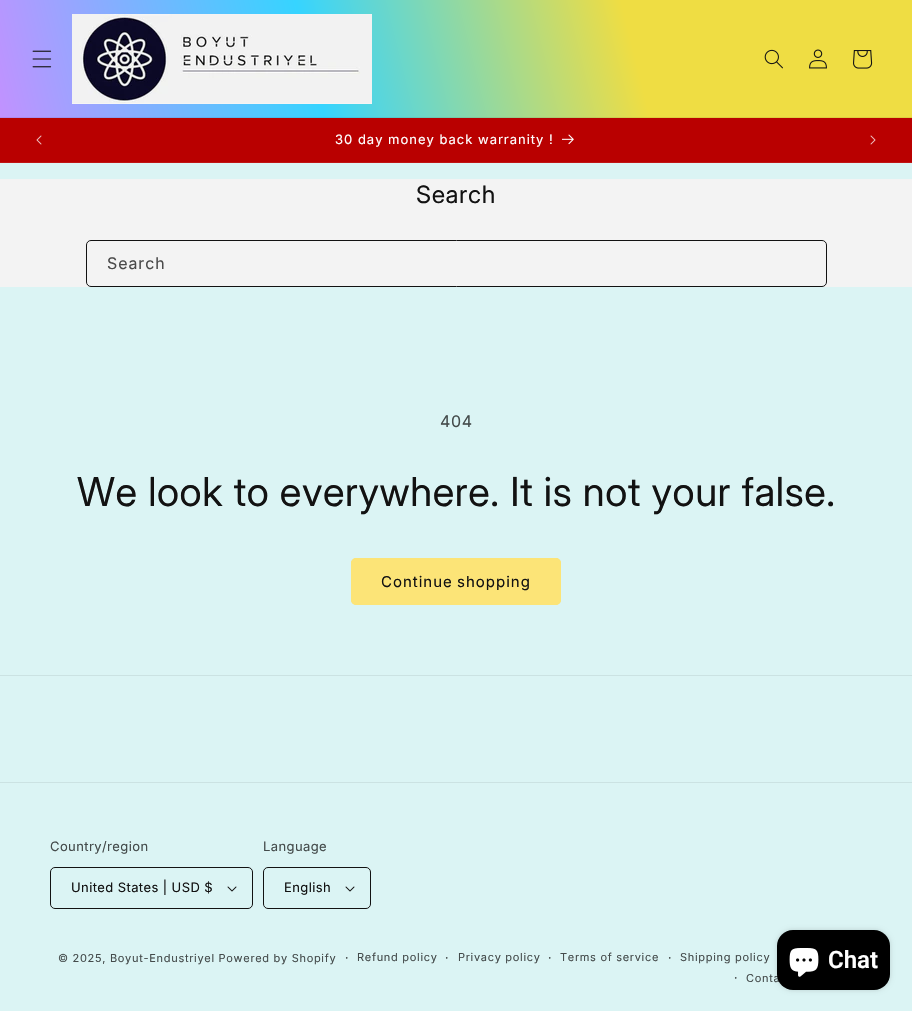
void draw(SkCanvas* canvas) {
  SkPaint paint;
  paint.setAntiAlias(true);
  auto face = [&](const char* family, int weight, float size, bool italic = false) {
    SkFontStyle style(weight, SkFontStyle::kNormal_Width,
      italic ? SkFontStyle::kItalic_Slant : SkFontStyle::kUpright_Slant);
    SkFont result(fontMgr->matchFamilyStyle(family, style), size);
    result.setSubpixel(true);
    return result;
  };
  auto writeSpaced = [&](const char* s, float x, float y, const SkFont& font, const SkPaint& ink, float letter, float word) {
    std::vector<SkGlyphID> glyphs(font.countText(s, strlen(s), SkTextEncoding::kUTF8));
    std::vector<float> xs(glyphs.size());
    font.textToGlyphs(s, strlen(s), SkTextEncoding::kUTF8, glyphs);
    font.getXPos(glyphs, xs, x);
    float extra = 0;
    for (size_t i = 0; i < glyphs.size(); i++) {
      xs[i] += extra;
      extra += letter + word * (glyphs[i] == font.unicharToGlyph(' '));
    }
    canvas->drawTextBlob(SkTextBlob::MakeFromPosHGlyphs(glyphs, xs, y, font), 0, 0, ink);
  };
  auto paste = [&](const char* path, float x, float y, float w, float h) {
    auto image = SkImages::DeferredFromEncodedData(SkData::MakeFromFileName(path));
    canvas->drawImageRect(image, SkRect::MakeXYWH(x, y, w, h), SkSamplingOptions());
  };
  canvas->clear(0xffdbf4f4);
  {
    const SkColor colors[] = {0xfff977ff, 0xff36d4ff, 0xffefdd43};
    const float stops[] = {0.08f, 0.47f, 0.75f};
    const SkPoint ends[] = {{-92, 642}, {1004, 369}};
    paint.setShader(SkGradientShader::MakeLinear(ends, colors, stops, 3, SkTileMode::kClamp));
    paint.setAlpha(255);
  }
  canvas->drawRect(SkRect::MakeXYWH(0, 0, 912, 117), paint);
  {
    const SkColor colors[] = {0xffe76fec, 0xff33c4ec, 0xffddcd3f};
    const float stops[] = {0.08f, 0.47f, 0.75f};
    const SkPoint ends[] = {{-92, 642}, {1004, 369}};
    paint.setShader(SkGradientShader::MakeLinear(ends, colors, stops, 3, SkTileMode::kClamp));
    paint.setAlpha(255);
  }
  canvas->drawRect(SkRect::MakeXYWH(0, 117, 912, 1), paint);
  paste("img/1.png", 32, 50, 20, 18);
  paste("img/2.png", 72, 14, 300, 90);
  paste("img/3.png", 764, 49, 19, 20);
  paste("img/4.png", 809, 49, 18, 20);
  paste("img/5.png", 853, 50, 20, 19);
  paint.setShader(nullptr);
  paint.setColor(0xffb90000);
  canvas->drawRect(SkRect::MakeXYWH(0, 118, 912, 44), paint);
  paint.setColor(0xffbf1414);
  canvas->drawRect(SkRect::MakeXYWH(0, 162, 912, 1), paint);
  paste("img/6.png", 36, 135, 6, 10);
  paste("img/7.png", 562, 134, 12, 11);
  paste("img/8.png", 870, 135, 6, 10);
  paint.setColor(0xfff3f3f3);
  canvas->drawRect(SkRect::MakeXYWH(0, 179, 912, 108), paint);
  paint.setStroke(true);
  paint.setStrokeWidth(1);
  paint.setColor(0xff121212);
  canvas->drawRoundRect(SkRect::MakeXYWH(86.5f, 240.5f, 740, 46), 4.5f, 4.5f, paint);
  paint.setStroke(false);
  paint.setColor(0xfffce477);
  canvas->drawRoundRect(SkRect::MakeXYWH(351, 558, 210, 47), 5, 5, paint);
  paint.setStroke(true);
  canvas->drawRoundRect(SkRect::MakeXYWH(351.5f, 558.5f, 209, 46), 4.5f, 4.5f, paint);
  paint.setStroke(false);
  paint.setColor(0xffcbe2e2);
  canvas->drawRect(SkRect::MakeXYWH(0, 675, 912, 1), paint);
  canvas->drawRect(SkRect::MakeXYWH(0, 782, 912, 1), paint);
  paste("img/9.png", 227, 886, 10, 6);
  paint.setStroke(true);
  paint.setColor(0xff121212);
  canvas->drawRoundRect(SkRect::MakeXYWH(50.5f, 867.5f, 202, 41), 4.5f, 4.5f, paint);
  paste("img/9.png", 345, 886, 10, 6);
  canvas->drawRoundRect(SkRect::MakeXYWH(263.5f, 867.5f, 107, 41), 4.5f, 4.5f, paint);
  paint.setStroke(false);
  paint.setColor(0x26000000);
  paint.setMaskFilter(SkMaskFilter::MakeBlur(kNormal_SkBlurStyle, 2.5f));
  canvas->drawRoundRect(SkRect::MakeXYWH(777, 930, 113, 60), 16, 16, paint);
  paint.setMaskFilter(nullptr);
  auto f0 = face("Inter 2", 400, 13);
  paint.setColor(0xffffffff);
  writeSpaced("30 day money back warranity !", 335, 144, f0, paint, 1, 0);
  auto f1 = face("Inter", 400, 24);
  paint.setColor(0xff121212);
  writeSpaced("Search", 416, 203, f1, paint, 0.6f, 0);
  auto f2 = face("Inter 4", 400, 16);
  paint.setColor(0xff4a4a4a);
  writeSpaced("Search", 107, 269, f2, paint, 1, 0);
  auto f3 = face("Inter 2", 400, 16);
  paint.setColor(0xff444b4b);
  writeSpaced("404", 440, 427, f3, paint, 0.6f, 0);
  auto f4 = face("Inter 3", 400, 40);
  paint.setColor(0xff121212);
  writeSpaced("We look to everywhere. It is not your false.", 77, 506, f4, paint, 0.6f, 0);
  auto f5 = face("Inter 2", 400, 15);
  writeSpaced("Continue shopping", 381, 587, f5, paint, 1, -1);
  paint.setColor(0xff444b4b);
  writeSpaced("Country/region", 50, 851, f0, paint, 0.4f, 0);
  paint.setColor(0xff121212);
  writeSpaced("United States | USD $", 71, 892, f0, paint, 0.4f, 0);
  paint.setColor(0xff444b4b);
  writeSpaced("Language", 263, 851, f0, paint, 0.4f, 0);
  paint.setColor(0xff121212);
  writeSpaced("English", 284, 892, f0, paint, 0.4f, 0);
  auto f6 = face("Inter 2", 400, 11);
  paint.setColor(0xff444b4b);
  writeSpaced("© 2025, Boyut-Endustriyel Powered by Shopify", 58, 962, f6, paint, 0.7f, 0);
  auto f7 = face("Inter 2", 400, 12);
  writeSpaced("·", 345, 962, f7, paint, 0.7f, 0);
  writeSpaced("Refund policy", 357, 961, f6, paint, 0.7f, 0);
  writeSpaced("·", 445, 962, f7, paint, 0.7f, 0);
  writeSpaced("Privacy policy", 458, 961, f6, paint, 0.7f, 0);
  writeSpaced("·", 548, 962, f7, paint, 0.7f, 0);
  writeSpaced("Terms of service", 560, 961, f6, paint, 0.7f, 0);
  writeSpaced("·", 668, 962, f7, paint, 0.7f, 0);
  writeSpaced("Shipping policy", 680, 961, f6, paint, 0.7f, 0);
  writeSpaced("·", 734, 982, f7, paint, 0.7f, 0);
  writeSpaced("Conta", 746, 982, f6, paint, 0.7f, 0);
  paint.setColor(0xff000000);
  canvas->drawRoundRect(SkRect::MakeXYWH(777, 930, 113, 60), 16, 16, paint);
  paste("img/10.png", 789, 948, 30, 29);
  auto f8 = face("Roboto", 600, 24);
  paint.setColor(0xffffffff);
  canvas->drawString("Chat", 828, 968, f8, paint);
}
